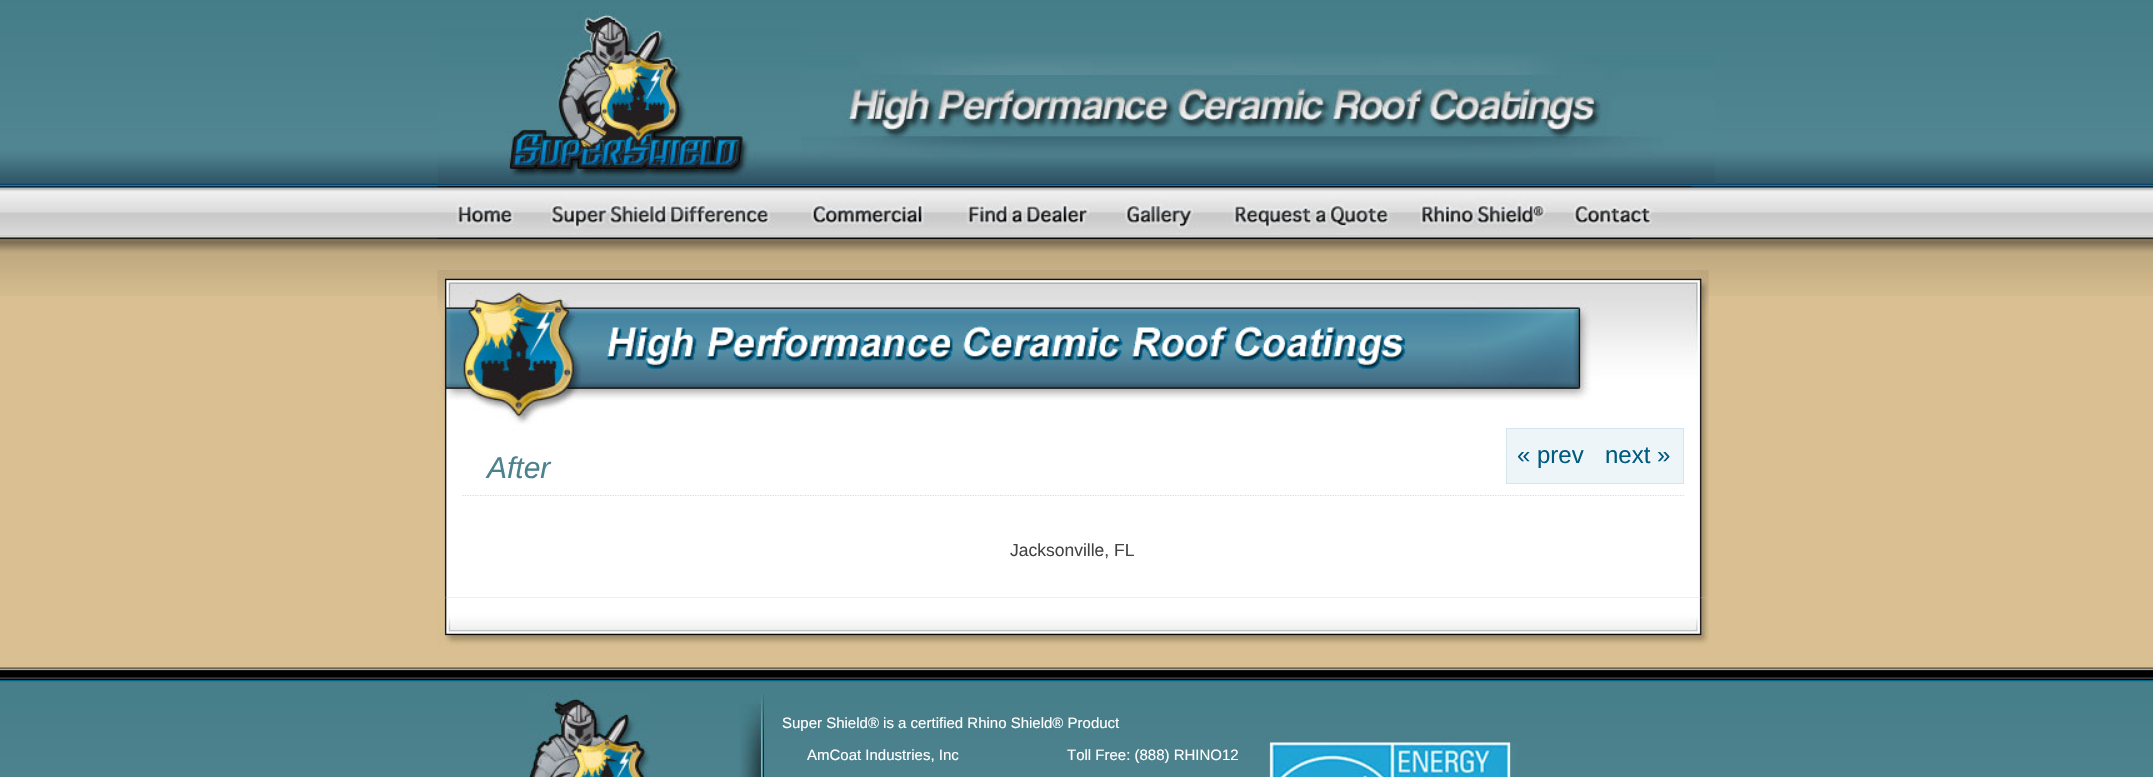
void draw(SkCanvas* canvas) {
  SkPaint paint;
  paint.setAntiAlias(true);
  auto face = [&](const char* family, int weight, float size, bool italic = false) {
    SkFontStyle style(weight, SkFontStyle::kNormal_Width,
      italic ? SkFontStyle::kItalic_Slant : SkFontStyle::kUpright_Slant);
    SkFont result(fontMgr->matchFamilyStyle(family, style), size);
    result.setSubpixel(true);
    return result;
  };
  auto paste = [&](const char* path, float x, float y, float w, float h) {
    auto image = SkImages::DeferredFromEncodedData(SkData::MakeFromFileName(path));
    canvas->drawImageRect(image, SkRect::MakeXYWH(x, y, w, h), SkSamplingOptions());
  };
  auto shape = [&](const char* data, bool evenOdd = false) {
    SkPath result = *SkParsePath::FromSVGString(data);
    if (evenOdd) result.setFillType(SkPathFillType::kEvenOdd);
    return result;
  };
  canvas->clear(0xffd9bf91);
  paste("img/1.png", 0, 0, 2153, 296);
  paste("img/2.png", 438, 10, 363, 174);
  paste("img/3.png", 801, 54, 914, 130);
  paste("img/4.png", 437, 186, 100, 53);
  paste("img/5.png", 536, 186, 256, 53);
  paste("img/6.png", 791, 186, 157, 53);
  paste("img/7.png", 947, 186, 163, 53);
  paste("img/8.png", 1110, 186, 105, 53);
  paste("img/9.png", 1215, 186, 195, 53);
  paste("img/10.png", 1410, 186, 148, 53);
  paste("img/11.png", 1557, 186, 135, 53);
  paste("img/12.png", 437, 270, 1272, 170);
  paste("img/13.png", 607, 326, 799, 43);
  paste("img/14.png", 444, 440, 1265, 158);
  paint.setStroke(true);
  paint.setStrokeWidth(1.2f);
  paint.setColor(0xffddddcc);
  paint.setPathEffect(SkDashPathEffect::Make({{1.25f, 1.25f}}, 0));
  canvas->drawPath(shape("M462.5 495.5H1684"), paint);
  paint.setPathEffect(nullptr);
  paint.setStroke(false);
  paint.setColor(0xffeef5f9);
  canvas->drawRect(SkRect::MakeXYWH(1506.5f, 428.5f, 177, 55), paint);
  paint.setStroke(true);
  paint.setStrokeWidth(1);
  paint.setColor(0xffd5e6ee);
  canvas->drawRect(SkRect::MakeXYWH(1506.5f, 428.5f, 177, 55), paint);
  paste("img/15.png", 437, 597, 1272, 49);
  paste("img/16.png", 0, 667, 2153, 110);
  paste("img/17.png", 527, 694, 123, 83);
  paste("img/18.png", 740, 694, 25, 83);
  paste("img/19.png", 1268, 742, 249, 35);
  auto f0 = face("Liberation Sans", 400, 30, true);
  paint.setStroke(false);
  paint.setColor(0xff4b828e);
  canvas->drawString("After", 487, 478, f0, paint);
  auto f1 = face("Liberation Sans", 400, 24);
  paint.setColor(0xff005a7f);
  canvas->drawString("« prev", 1517, 463, f1, paint);
  canvas->drawString("next »", 1605, 463, f1, paint);
  auto f2 = face("Liberation Sans", 400, 17.5f);
  paint.setColor(0xff444444);
  canvas->drawString("Jacksonville, FL", 1010, 556, f2, paint);
  auto f3 = face("Liberation Sans", 400, 15);
  paint.setColor(0xffffffff);
  {
    const struct { const char* s; float x, y; } items[] = {
      {"Super Shield® is a certified Rhino Shield® Product", 782, 728},
      {"AmCoat Industries, Inc", 807, 760},
      {"Toll Free: (888) RHINO12", 1067, 760},
    };
    for (auto [s, x, y] : items) {
      canvas->drawString(s, x, y, f3, paint);
    }
  }
}
